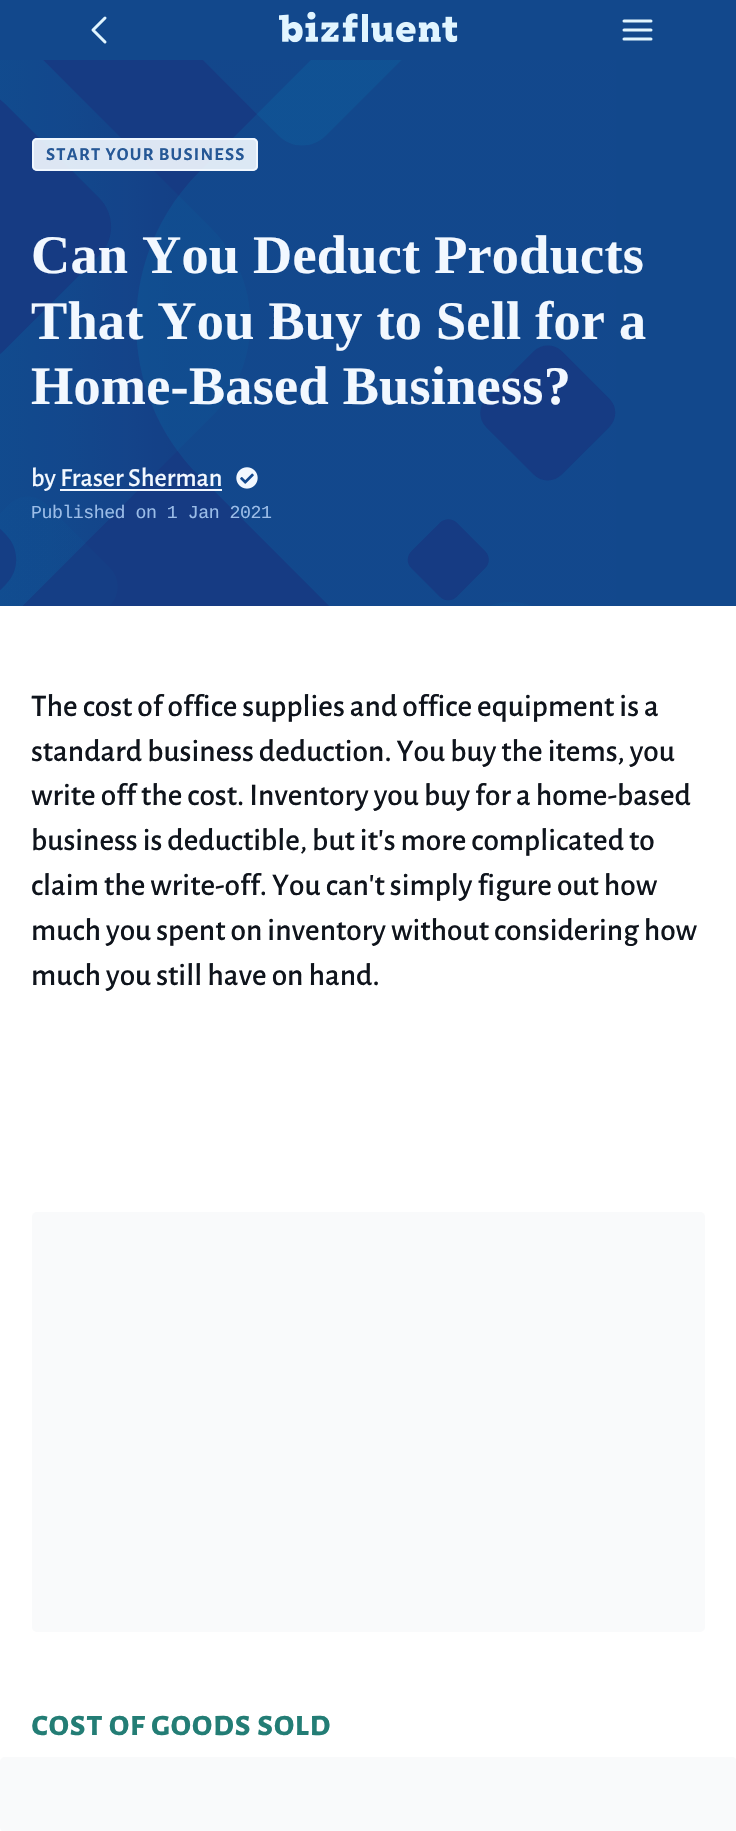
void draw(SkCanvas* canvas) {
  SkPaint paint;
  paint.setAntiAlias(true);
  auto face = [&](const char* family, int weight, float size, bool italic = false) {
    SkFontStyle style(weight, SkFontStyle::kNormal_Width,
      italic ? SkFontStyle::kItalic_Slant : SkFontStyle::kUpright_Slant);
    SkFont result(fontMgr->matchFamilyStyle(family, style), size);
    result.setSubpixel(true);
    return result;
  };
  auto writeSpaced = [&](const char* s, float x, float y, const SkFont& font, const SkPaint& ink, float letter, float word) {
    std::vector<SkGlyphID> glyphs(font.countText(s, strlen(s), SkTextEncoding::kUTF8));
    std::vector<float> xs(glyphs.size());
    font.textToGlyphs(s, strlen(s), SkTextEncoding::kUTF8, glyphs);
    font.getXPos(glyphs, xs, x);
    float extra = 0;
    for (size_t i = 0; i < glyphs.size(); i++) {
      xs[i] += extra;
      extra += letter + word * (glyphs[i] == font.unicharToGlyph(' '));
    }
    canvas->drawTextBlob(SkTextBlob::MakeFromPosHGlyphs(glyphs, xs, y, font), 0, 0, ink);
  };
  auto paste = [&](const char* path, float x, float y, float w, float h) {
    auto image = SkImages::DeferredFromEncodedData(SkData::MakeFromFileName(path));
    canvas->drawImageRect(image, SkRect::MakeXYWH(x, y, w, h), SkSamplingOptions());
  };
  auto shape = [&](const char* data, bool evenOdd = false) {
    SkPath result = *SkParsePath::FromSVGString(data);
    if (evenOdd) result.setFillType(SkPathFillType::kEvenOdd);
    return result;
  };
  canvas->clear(0xffffffff);
  paint.setColor(0xff12488c);
  canvas->drawRect(SkRect::MakeXYWH(0, 0, 736, 606), paint);
  paint.setStroke(true);
  paint.setStrokeWidth(3);
  paint.setStrokeCap(SkPaint::kRound_Cap);
  paint.setStrokeJoin(SkPaint::kRound_Join);
  paint.setColor(0xffe1f5ff);
  canvas->drawPath(shape("M105 42L93 30L105 18"), paint);
  paste("img/1.png", 279, 11, 179, 32);
  canvas->drawPath(shape("M624 30H651M624 21H651M624 39H651"), paint);
  paste("img/2.png", 0, 60, 616, 546);
  paint.setStroke(false);
  paint.setColor(0xe6f2f8ff);
  canvas->drawRoundRect(SkRect::MakeXYWH(32, 138, 226, 33), 5, 5, paint);
  paint.setStroke(true);
  paint.setStrokeWidth(2);
  paint.setStrokeCap(SkPaint::kButt_Cap);
  paint.setStrokeJoin(SkPaint::kMiter_Join);
  canvas->drawRoundRect(SkRect::MakeXYWH(33, 139, 224, 31), 4, 4, paint);
  paint.setStroke(false);
  paint.setColor(0xfff2f8ff);
  canvas->drawRect(SkRect::MakeXYWH(60, 489, 162, 2), paint);
  paste("img/3.png", 236, 467, 22, 22);
  paint.setColor(0xfff9fafb);
  canvas->drawRoundRect(SkRect::MakeXYWH(32, 1212, 673, 420), 5, 5, paint);
  canvas->drawRoundRect(SkRect::MakeXYWH(0, 1757, 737, 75), 5, 5, paint);
  auto f0 = face("Alegreya Sans", 700, 18.25f);
  paint.setColor(0xff265896);
  writeSpaced("START YOUR BUSINESS", 46, 160, f0, paint, 1.25f, 0);
  auto f1 = face("Liberation Serif", 700, 54.25f);
  paint.setColor(0xfff2f8ff);
  {
    const struct { const char* s; float x, y; } items[] = {
      {"Can You Deduct Products", 31, 273},
      {"That You Buy to Sell for a", 31, 339},
      {"Home-Based Business?", 31, 404},
    };
    for (auto [s, x, y] : items) {
      writeSpaced(s, x, y, f1, paint, 0.25f, 0);
    }
  }
  auto f2 = face("Alegreya Sans", 500, 26.25f);
  canvas->drawString("by Fraser Sherman", 31, 486, f2, paint);
  auto f3 = face("Liberation Mono", 400, 18.25f);
  paint.setColor(0xff9bbde8);
  writeSpaced("Published on 1 Jan 2021", 31, 518, f3, paint, -0.5f, 0);
  auto f4 = face("Alegreya Sans", 500, 31.4f);
  paint.setColor(0xff0f141c);
  {
    const struct { const char* s; float x, y; } items[] = {
      {"The cost of office supplies and office equipment is a", 31, 716},
      {"standard business deduction. You buy the items, you", 31, 761},
      {"write off the cost. Inventory you buy for a home-based", 31, 805},
      {"business is deductible, but it's more complicated to", 31, 850},
      {"claim the write-off. You can't simply figure out how", 31, 895},
      {"much you spent on inventory without considering how", 31, 940},
      {"much you still have on hand.", 31, 985},
    };
    for (auto [s, x, y] : items) {
      canvas->drawString(s, x, y, f4, paint);
    }
  }
  auto f5 = face("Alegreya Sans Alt", 700, 37.75f);
  paint.setColor(0xff237d75);
  canvas->drawString("cost of goods sold", 31, 1735, f5, paint);
}
